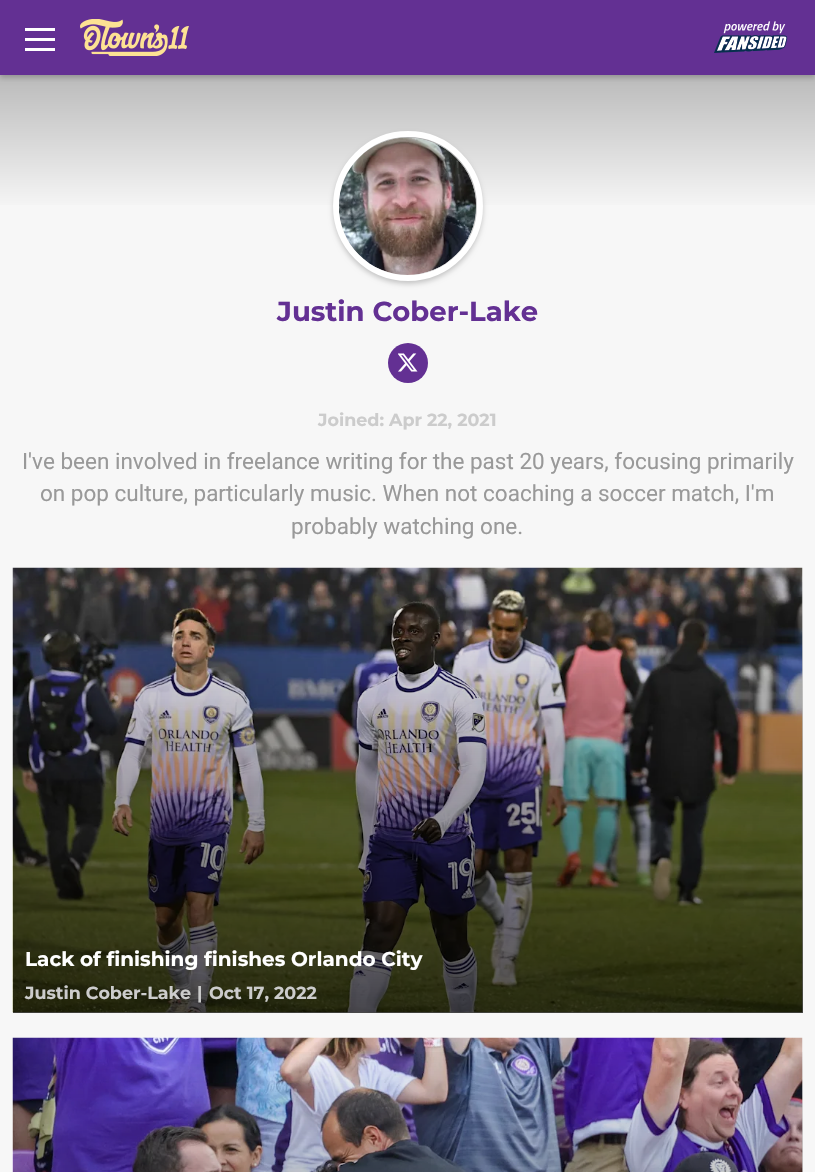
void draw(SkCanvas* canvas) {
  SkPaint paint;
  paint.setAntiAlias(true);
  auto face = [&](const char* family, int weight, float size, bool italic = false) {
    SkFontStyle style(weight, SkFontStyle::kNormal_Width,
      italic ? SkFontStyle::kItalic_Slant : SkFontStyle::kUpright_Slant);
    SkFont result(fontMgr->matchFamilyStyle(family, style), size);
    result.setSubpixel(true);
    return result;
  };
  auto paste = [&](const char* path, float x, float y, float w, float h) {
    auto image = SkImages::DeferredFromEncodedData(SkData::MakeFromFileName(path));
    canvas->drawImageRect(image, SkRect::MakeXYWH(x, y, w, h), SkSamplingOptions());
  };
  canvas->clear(0xfff7f7f7);
  {
    const SkColor colors[] = {0xfff8f8f8, 0xff999999};
    const float stops[] = {0, 1};
    const SkPoint ends[] = {{408, 213}, {408, 0}};
    paint.setShader(SkGradientShader::MakeLinear(ends, colors, stops, 2, SkTileMode::kClamp));
    paint.setAlpha(255);
  }
  canvas->drawRect(SkRect::MakeXYWH(0, 75, 815, 130), paint);
  paint.setShader(nullptr);
  paint.setColor(0x33000000);
  paint.setMaskFilter(SkMaskFilter::MakeBlur(kNormal_SkBlurStyle, 2.5f));
  canvas->drawRect(SkRect::MakeXYWH(0, 3, 815, 75), paint);
  paint.setMaskFilter(nullptr);
  {
    const struct { float x, y, w, h; SkColor color; } items[] = {
      {0, 0, 815, 75, 0xff633093},
      {25, 28, 30, 3, 0xffffffff},
      {25, 38, 30, 3, 0xffffffff},
      {25, 48, 30, 3, 0xffffffff},
    };
    for (auto [x, y, w, h, color] : items) {
      paint.setColor(color);
      canvas->drawRect(SkRect::MakeXYWH(x, y, w, h), paint);
    }
  }
  paste("img/1.png", 80, 19, 109, 37);
  paste("img/2.png", 714, 21, 74, 32);
  paint.setColor(0x33000000);
  paint.setMaskFilter(SkMaskFilter::MakeBlur(kNormal_SkBlurStyle, 2.5f));
  canvas->drawRoundRect(SkRect::MakeXYWH(333, 134, 150, 150), 75, 75, paint);
  paint.setMaskFilter(nullptr);
  paint.setStroke(true);
  paint.setStrokeWidth(6);
  paint.setColor(0xffffffff);
  canvas->drawCircle(408, 206, 72, paint);
  paint.setStroke(false);
  paint.setColor(0xfff7f7f7);
  canvas->drawCircle(407.5f, 206.5f, 68.5f, paint);
  paste("img/3.png", 339, 137, 137, 138);
  paint.setColor(0xff633093);
  canvas->drawCircle(408, 363, 20, paint);
  paste("img/4.png", 398, 353, 20, 19);
  paste("img/5.png", 12, 567, 791, 446);
  {
    const SkColor colors[] = {0xb3000000, 0x00000000};
    const float stops[] = {0, 1};
    const SkPoint ends[] = {{408, 1013}, {408, 568}};
    paint.setShader(SkGradientShader::MakeLinear(ends, colors, stops, 2, SkTileMode::kClamp));
    paint.setAlpha(255);
  }
  canvas->drawRect(SkRect::MakeXYWH(13, 582, 790, 431), paint);
  paste("img/6.png", 12, 1037, 791, 135);
  {
    const SkColor colors[] = {0xb3000000, 0x00000000};
    const float stops[] = {0, 1};
    const SkPoint ends[] = {{408, 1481}, {408, 1038}};
    paint.setShader(SkGradientShader::MakeLinear(ends, colors, stops, 2, SkTileMode::kClamp));
    paint.setAlpha(255);
  }
  canvas->drawRect(SkRect::MakeXYWH(13, 1052, 790, 120), paint);
  auto f0 = face("Montserrat", 700, 27.5f);
  paint.setShader(nullptr);
  paint.setColor(0xff633093);
  canvas->drawString("Justin Cober-Lake", 277, 321, f0, paint);
  auto f1 = face("Montserrat", 700, 17.5f);
  paint.setColor(0xffcccccc);
  canvas->drawString("Joined: Apr 22, 2021", 318, 426, f1, paint);
  auto f2 = face("Roboto", 400, 22.5f);
  paint.setColor(0xff999999);
  {
    const struct { const char* s; float x, y; } items[] = {
      {"I've been involved in freelance writing for the past 20 years, focusing primarily", 22, 469},
      {"on pop culture, particularly music. When not coaching a soccer match, I'm", 40, 501},
      {"probably watching one.", 291, 534},
    };
    for (auto [s, x, y] : items) {
      canvas->drawString(s, x, y, f2, paint);
    }
  }
  auto f3 = face("Montserrat", 700, 20);
  paint.setColor(0xffffffff);
  canvas->drawString("Lack of finishing finishes Orlando City", 25, 966, f3, paint);
  paint.setColor(0xffcccccc);
  {
    const struct { const char* s; float x, y; } items[] = {
      {"Justin Cober-Lake", 25, 999},
      {"|", 197, 999},
      {"Oct 17, 2022", 209, 999},
    };
    for (auto [s, x, y] : items) {
      canvas->drawString(s, x, y, f1, paint);
    }
  }
}
